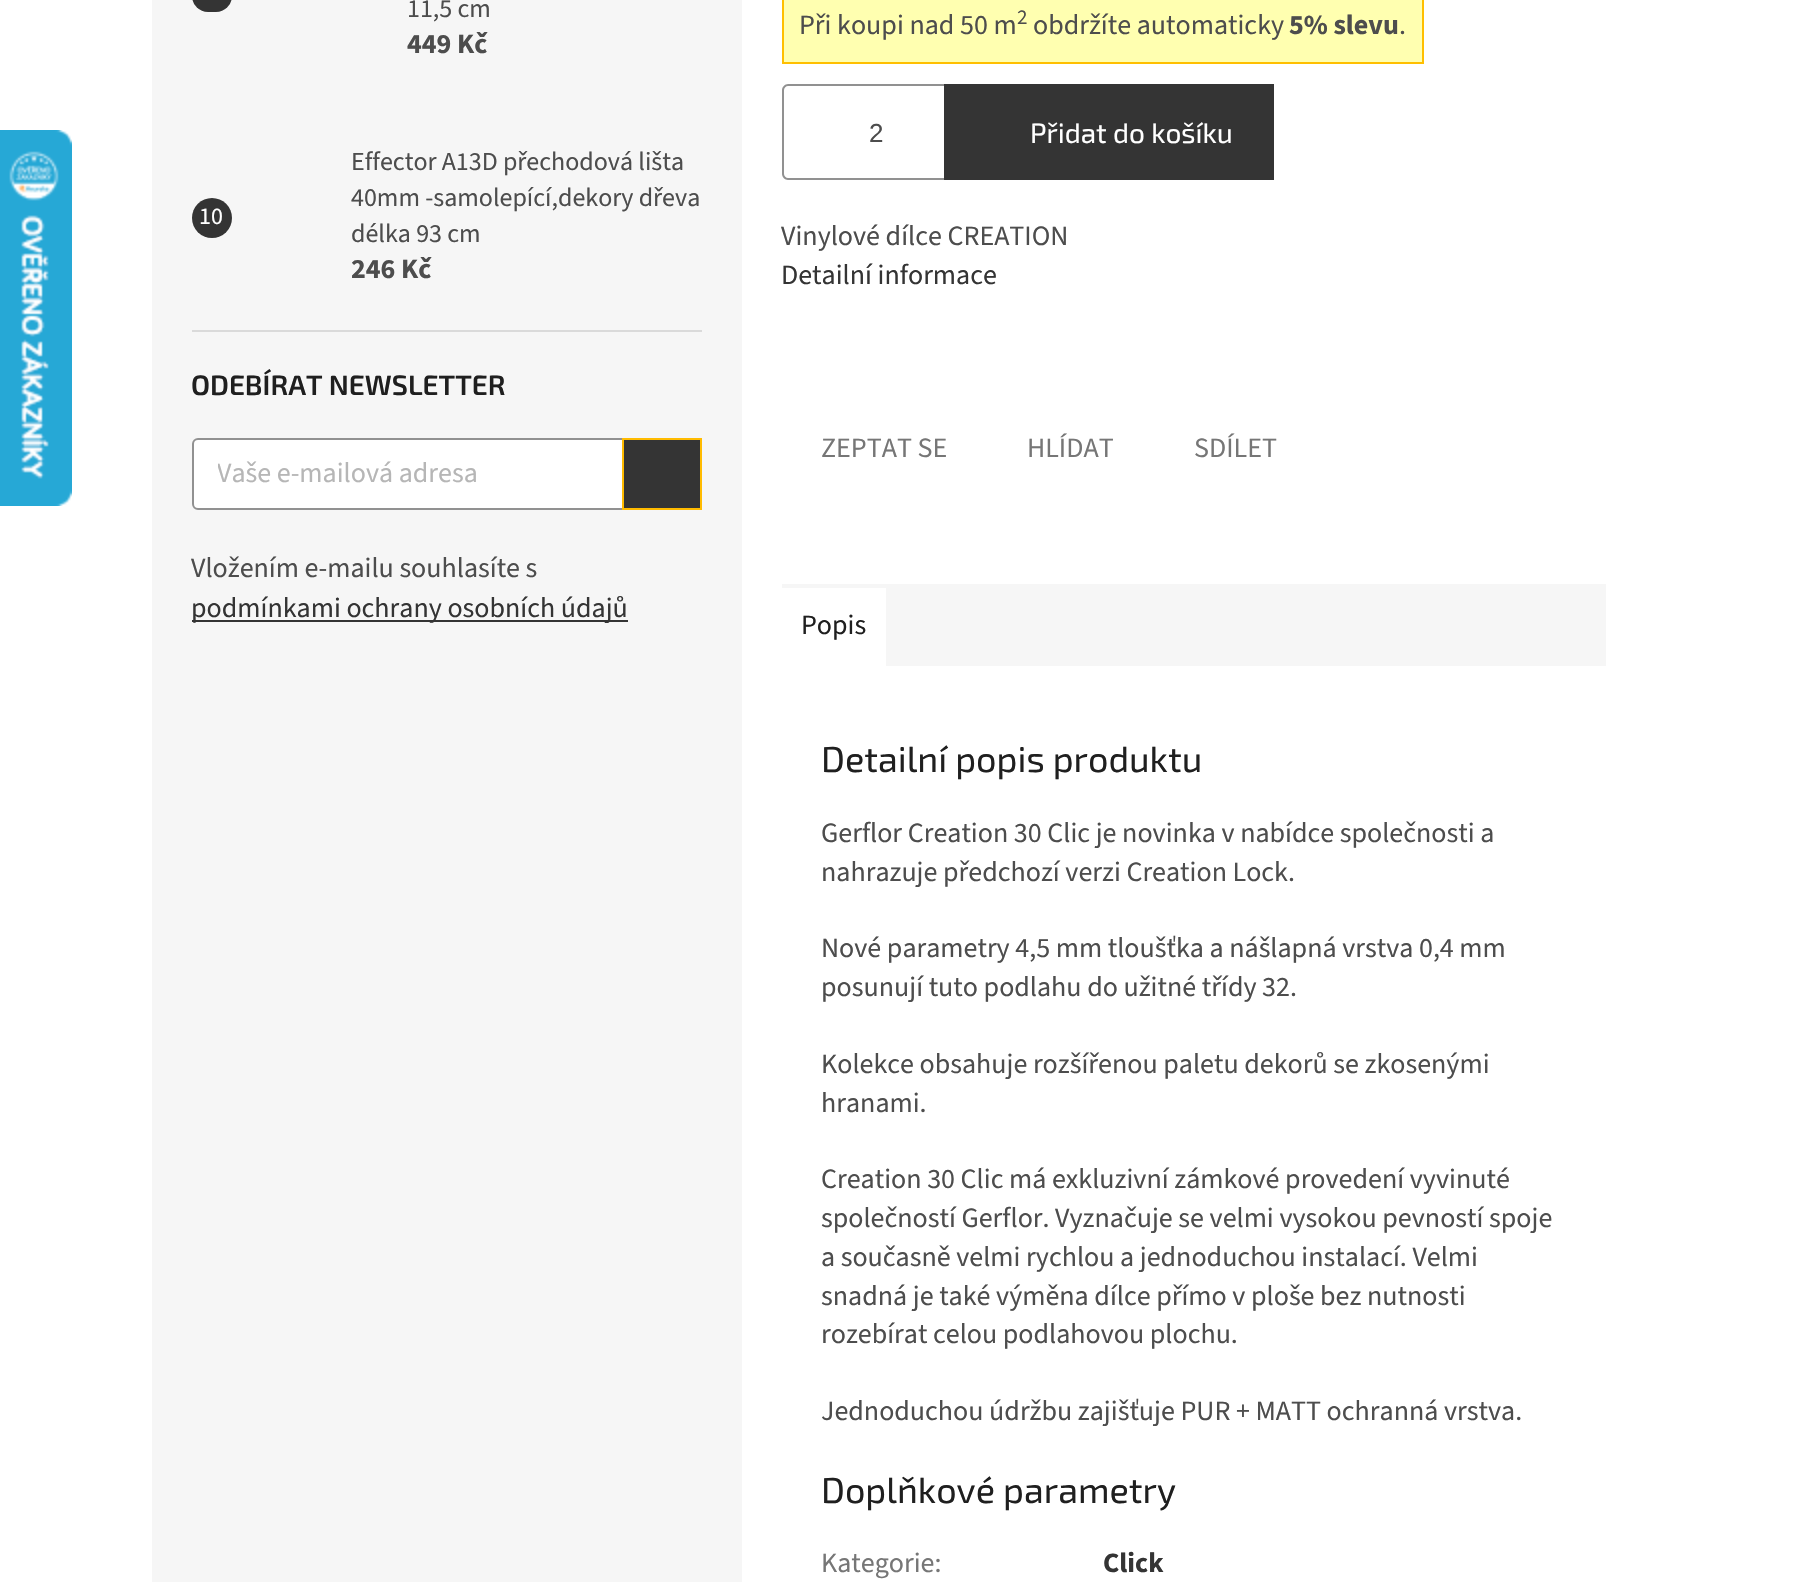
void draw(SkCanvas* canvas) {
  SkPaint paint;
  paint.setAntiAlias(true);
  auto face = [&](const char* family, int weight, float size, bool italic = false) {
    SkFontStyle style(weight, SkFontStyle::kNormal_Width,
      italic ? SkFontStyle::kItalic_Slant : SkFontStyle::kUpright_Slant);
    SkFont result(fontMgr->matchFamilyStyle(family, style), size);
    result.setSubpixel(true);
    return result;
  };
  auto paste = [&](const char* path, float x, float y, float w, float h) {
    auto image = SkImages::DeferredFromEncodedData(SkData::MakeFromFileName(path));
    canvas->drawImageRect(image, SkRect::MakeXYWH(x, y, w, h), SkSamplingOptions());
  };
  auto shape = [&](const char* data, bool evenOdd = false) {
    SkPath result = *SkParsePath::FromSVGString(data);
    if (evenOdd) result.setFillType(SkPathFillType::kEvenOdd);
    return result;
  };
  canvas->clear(0xffffffff);
  paste("img/1.png", 0, 130, 72, 376);
  paint.setColor(0xfff6f6f6);
  canvas->drawRect(SkRect::MakeXYWH(152, 0, 590, 1582), paint);
  paint.setColor(0xffdadada);
  canvas->drawRect(SkRect::MakeXYWH(192, 330, 510, 2), paint);
  paint.setColor(0xff343434);
  canvas->drawRoundRect(SkRect::MakeXYWH(192, -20, 40, 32), 20, 20, paint);
  canvas->drawCircle(212, 218, 20, paint);
  paint.setColor(0xffffffff);
  canvas->drawRoundRect(SkRect::MakeXYWH(193, 439, 508, 70), 5, 5, paint);
  paint.setStroke(true);
  paint.setStrokeWidth(2);
  paint.setColor(0xff919191);
  canvas->drawRoundRect(SkRect::MakeXYWH(193, 439, 508, 70), 5, 5, paint);
  paint.setStroke(false);
  paint.setColor(0xff343434);
  canvas->drawRect(SkRect::MakeXYWH(623, 439, 78, 70), paint);
  paint.setStroke(true);
  paint.setColor(0xffffbb00);
  canvas->drawRect(SkRect::MakeXYWH(623, 439, 78, 70), paint);
  paint.setStroke(false);
  paint.setColor(0xff343434);
  canvas->drawRect(SkRect::MakeXYWH(192, 620, 436, 2), paint);
  paint.setColor(0xffffffb0);
  canvas->drawRect(SkRect::MakeXYWH(783, -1, 640, 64), paint);
  paint.setStroke(true);
  paint.setColor(0xffffbf00);
  canvas->drawRect(SkRect::MakeXYWH(783, -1, 640, 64), paint);
  paint.setStroke(false);
  paint.setColor(0xff919191);
  canvas->drawPath(shape("M788 84H944V180H788C785 180 782 177 782 174V90C782 87 785 84 788 84ZM788 86H944V178H788C786 178 784 176 784 174V90C784 88 786 86 788 86Z", true), paint);
  {
    const struct { float x, y, w, h; SkColor color; } items[] = {
      {944, 84, 330, 96, 0xff343434},
      {886, 584, 720, 82, 0xfff6f6f6},
      {782, 584, 104, 4, 0xfff6f6f6},
    };
    for (auto [x, y, w, h, color] : items) {
      paint.setColor(color);
      canvas->drawRect(SkRect::MakeXYWH(x, y, w, h), paint);
    }
  }
  auto f0 = face("Source Sans 3", 400, 26);
  paint.setColor(0xff4d4d4d);
  canvas->drawString("11,5 cm", 407, 17, f0, paint);
  auto f1 = face("Source Sans 3", 700, 28);
  canvas->drawString("449 Kč", 407, 53, f1, paint);
  auto f2 = face("Source Sans 3", 400, 24);
  paint.setColor(0xffffffff);
  canvas->drawString("10", 199, 224, f2, paint);
  paint.setColor(0xff4d4d4d);
  {
    const struct { const char* s; float x, y; } items[] = {
      {"Effector A13D přechodová lišta", 351, 170},
      {"40mm -samolepící,dekory dřeva", 351, 206},
      {"délka 93 cm", 351, 242},
    };
    for (auto [s, x, y] : items) {
      canvas->drawString(s, x, y, f0, paint);
    }
  }
  canvas->drawString("246 Kč", 351, 278, f1, paint);
  auto f3 = face("Exo 2", 600, 28);
  paint.setColor(0xff1f1f1f);
  canvas->drawString("ODEBÍRAT NEWSLETTER", 191, 395, f3, paint);
  canvas->save();
  canvas->clipRect(SkRect::MakeXYWH(218, 454, 342, 40));
  auto f4 = face("Source Sans 3", 400, 28);
  paint.setColor(0xffb6b6b6);
  canvas->drawString("Vaše e-mailová adresa", 217, 482, f4, paint);
  canvas->restore();
  paint.setColor(0xff4d4d4d);
  canvas->drawString("Vložením e-mailu souhlasíte s", 191, 577, f4, paint);
  paint.setColor(0xff343434);
  canvas->drawString("podmínkami ochrany osobních údajů", 191, 617, f4, paint);
  paint.setColor(0xff4d4d4d);
  canvas->drawString("Při koupi nad 50 m", 799, 34, f4, paint);
  auto f5 = face("Source Sans 3", 400, 21);
  canvas->drawString("2", 1017, 24, f5, paint);
  canvas->drawString("obdržíte automaticky", 1033, 34, f4, paint);
  canvas->drawString("5% slevu", 1289, 34, f1, paint);
  canvas->drawString(".", 1399, 34, f4, paint);
  auto f6 = face("Liberation Sans", 400, 26);
  canvas->drawString("2", 869, 142, f6, paint);
  auto f7 = face("Exo 2", 400, 28);
  paint.setColor(0xffffffff);
  canvas->drawString("Přidat do košíku", 1030, 143, f7, paint);
  paint.setColor(0xff4d4d4d);
  canvas->drawString("Vinylové dílce CREATION", 781, 245, f4, paint);
  paint.setColor(0xff343434);
  canvas->drawString("Detailní informace", 781, 284, f4, paint);
  paint.setColor(0xff767676);
  {
    const struct { const char* s; float x, y; } items[] = {
      {"ZEPTAT SE", 821, 457},
      {"HLÍDAT", 1027, 457},
      {"SDÍLET", 1194, 457},
    };
    for (auto [s, x, y] : items) {
      canvas->drawString(s, x, y, f4, paint);
    }
  }
  paint.setColor(0xff1f1f1f);
  canvas->drawString("Popis", 801, 634, f4, paint);
  auto f8 = face("Exo 2", 400, 36);
  canvas->drawString("Detailní popis produktu", 821, 772, f8, paint);
  paint.setColor(0xff4d4d4d);
  {
    const struct { const char* s; float x, y; } items[] = {
      {"Gerflor Creation 30 Clic je novinka v nabídce společnosti a", 821, 842},
      {"nahrazuje předchozí verzi Creation Lock.", 821, 881},
      {"Nové parametry 4,5 mm tloušťka a nášlapná vrstva 0,4 mm", 821, 957},
      {"posunují tuto podlahu do užitné třídy 32.", 821, 996},
      {"Kolekce obsahuje rozšířenou paletu dekorů se zkosenými", 821, 1073},
      {"hranami.", 821, 1112},
      {"Creation 30 Clic má exkluzivní zámkové provedení vyvinuté", 821, 1188},
      {"společností Gerflor. Vyznačuje se velmi vysokou pevností spoje", 821, 1227},
      {"a současně velmi rychlou a jednoduchou instalací. Velmi", 821, 1266},
      {"snadná je také výměna dílce přímo v ploše bez nutnosti", 821, 1305},
      {"rozebírat celou podlahovou plochu.", 821, 1343},
      {"Jednoduchou údržbu zajišťuje PUR + MATT ochranná vrstva.", 821, 1420},
    };
    for (auto [s, x, y] : items) {
      canvas->drawString(s, x, y, f4, paint);
    }
  }
  paint.setColor(0xff1f1f1f);
  canvas->drawString("Doplňkové parametry", 821, 1503, f8, paint);
  paint.setColor(0xff767676);
  canvas->drawString("Kategorie:", 821, 1572, f4, paint);
  paint.setColor(0xff343434);
  canvas->drawString("Click", 1103, 1572, f1, paint);
}
